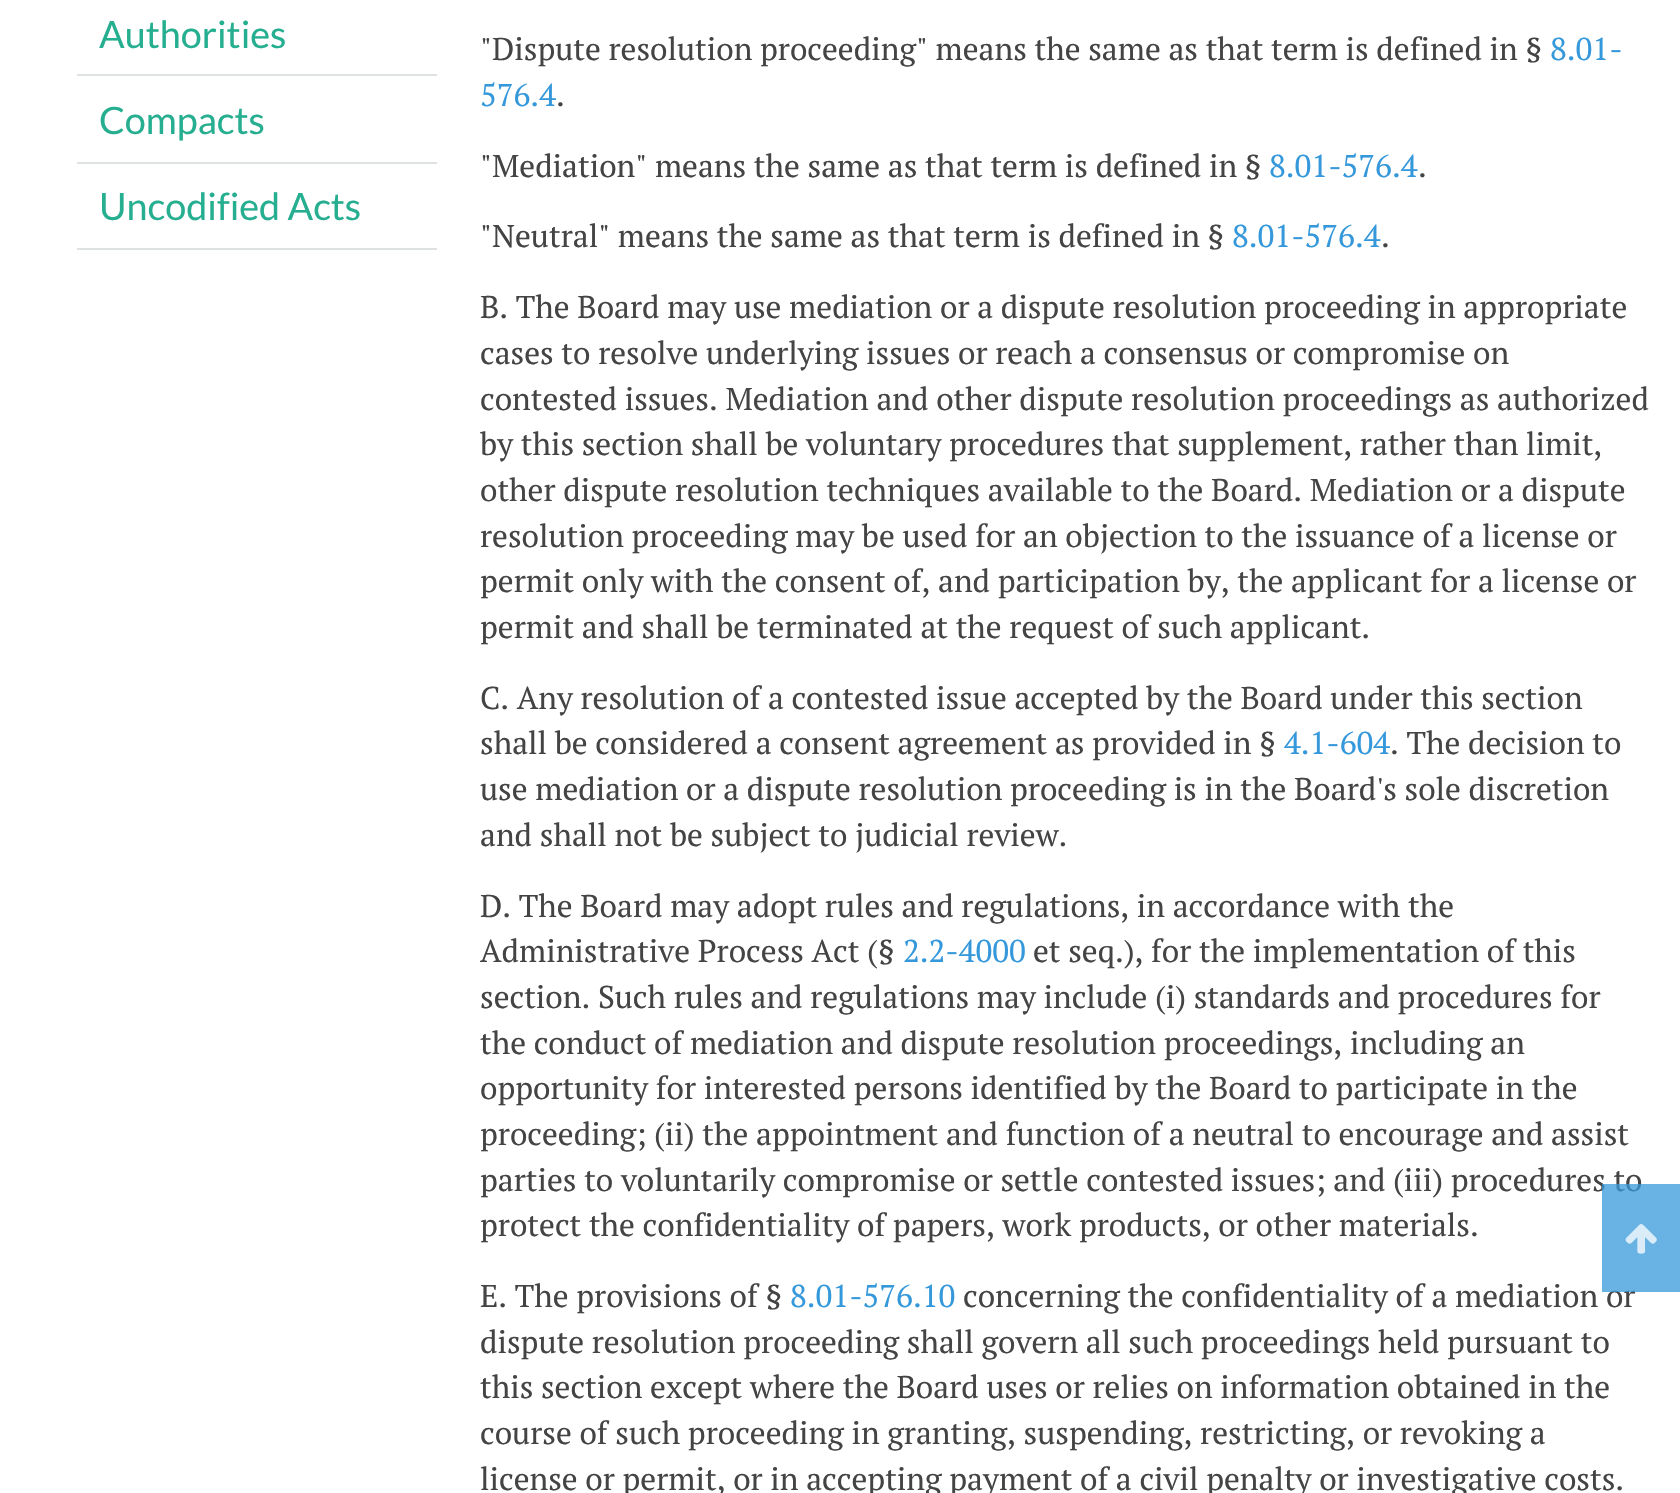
void draw(SkCanvas* canvas) {
  SkPaint paint;
  paint.setAntiAlias(true);
  auto face = [&](const char* family, int weight, float size, bool italic = false) {
    SkFontStyle style(weight, SkFontStyle::kNormal_Width,
      italic ? SkFontStyle::kItalic_Slant : SkFontStyle::kUpright_Slant);
    SkFont result(fontMgr->matchFamilyStyle(family, style), size);
    result.setSubpixel(true);
    return result;
  };
  auto paste = [&](const char* path, float x, float y, float w, float h) {
    auto image = SkImages::DeferredFromEncodedData(SkData::MakeFromFileName(path));
    canvas->drawImageRect(image, SkRect::MakeXYWH(x, y, w, h), SkSamplingOptions());
  };
  canvas->clear(0xffffffff);
  {
    const struct { float x, y, w, h; SkColor color; } items[] = {
      {77, 74, 360, 2, 0xffdee2e3},
      {77, 162, 360, 2, 0xffdee2e3},
      {77, 248, 360, 2, 0xffdee2e3},
    };
    for (auto [x, y, w, h, color] : items) {
      paint.setColor(color);
      canvas->drawRect(SkRect::MakeXYWH(x, y, w, h), paint);
    }
  }
  auto f0 = face("Lato", 400, 37.75f);
  paint.setColor(0xff26ae90);
  {
    const struct { const char* s; float x, y; } items[] = {
      {"Authorities", 99, 48},
      {"Compacts", 99, 134},
      {"Uncodified Acts", 99, 220},
    };
    for (auto [s, x, y] : items) {
      canvas->drawString(s, x, y, f0, paint);
    }
  }
  auto f1 = face("PT Serif", 400, 31.5f);
  paint.setColor(0xff444444);
  canvas->drawString("\"Dispute resolution proceeding\" means the same as that term is defined in §", 480, 60, f1, paint);
  paint.setColor(0xff3498db);
  canvas->drawString("8.01-", 1550, 60, f1, paint);
  canvas->drawString("576.4", 480, 106, f1, paint);
  paint.setColor(0xff444444);
  canvas->drawString(".", 556, 106, f1, paint);
  canvas->drawString("\"Mediation\" means the same as that term is defined in §", 480, 177, f1, paint);
  paint.setColor(0xff3498db);
  canvas->drawString("8.01-576.4", 1269, 177, f1, paint);
  paint.setColor(0xff444444);
  canvas->drawString(".", 1418, 177, f1, paint);
  canvas->drawString("\"Neutral\" means the same as that term is defined in §", 480, 247, f1, paint);
  paint.setColor(0xff3498db);
  canvas->drawString("8.01-576.4", 1232, 247, f1, paint);
  paint.setColor(0xff444444);
  {
    const struct { const char* s; float x, y; } items[] = {
      {".", 1381, 247},
      {"B. The Board may use mediation or a dispute resolution proceeding in appropriate", 480, 318},
      {"cases to resolve underlying issues or reach a consensus or compromise on", 480, 364},
      {"contested issues. Mediation and other dispute resolution proceedings as authorized", 480, 410},
      {"by this section shall be voluntary procedures that supplement, rather than limit,", 480, 455},
      {"other dispute resolution techniques available to the Board. Mediation or a dispute", 480, 501},
      {"resolution proceeding may be used for an objection to the issuance of a license or", 480, 547},
      {"permit only with the consent of, and participation by, the applicant for a license or", 480, 592},
      {"permit and shall be terminated at the request of such applicant.", 480, 638},
      {"C. Any resolution of a contested issue accepted by the Board under this section", 480, 709},
      {"shall be considered a consent agreement as provided in §", 480, 754},
    };
    for (auto [s, x, y] : items) {
      canvas->drawString(s, x, y, f1, paint);
    }
  }
  paint.setColor(0xff3498db);
  canvas->drawString("4.1-604", 1284, 754, f1, paint);
  paint.setColor(0xff444444);
  {
    const struct { const char* s; float x, y; } items[] = {
      {". The decision to", 1390, 754},
      {"use mediation or a dispute resolution proceeding is in the Board's sole discretion", 480, 800},
      {"and shall not be subject to judicial review.", 480, 846},
      {"D. The Board may adopt rules and regulations, in accordance with the", 480, 917},
      {"Administrative Process Act (§", 480, 962},
    };
    for (auto [s, x, y] : items) {
      canvas->drawString(s, x, y, f1, paint);
    }
  }
  paint.setColor(0xff3498db);
  canvas->drawString("2.2-4000", 903, 962, f1, paint);
  paint.setColor(0xff444444);
  {
    const struct { const char* s; float x, y; } items[] = {
      {"et seq.), for the implementation of this", 1033, 962},
      {"section. Such rules and regulations may include (i) standards and procedures for", 480, 1008},
      {"the conduct of mediation and dispute resolution proceedings, including an", 480, 1054},
      {"opportunity for interested persons identified by the Board to participate in the", 480, 1099},
      {"proceeding; (ii) the appointment and function of a neutral to encourage and assist", 480, 1145},
      {"parties to voluntarily compromise or settle contested issues; and (iii) procedures to", 480, 1191},
      {"protect the confidentiality of papers, work products, or other materials.", 480, 1236},
      {"E. The provisions of §", 480, 1307},
    };
    for (auto [s, x, y] : items) {
      canvas->drawString(s, x, y, f1, paint);
    }
  }
  paint.setColor(0xff3498db);
  canvas->drawString("8.01-576.10", 790, 1307, f1, paint);
  paint.setColor(0xff444444);
  {
    const struct { const char* s; float x, y; } items[] = {
      {"concerning the confidentiality of a mediation or", 963, 1307},
      {"dispute resolution proceeding shall govern all such proceedings held pursuant to", 480, 1353},
      {"this section except where the Board uses or relies on information obtained in the", 480, 1398},
      {"course of such proceeding in granting, suspending, restricting, or revoking a", 480, 1444},
      {"license or permit, or in accepting payment of a civil penalty or investigative costs.", 480, 1490},
    };
    for (auto [s, x, y] : items) {
      canvas->drawString(s, x, y, f1, paint);
    }
  }
  paint.setColor(0xbf3598db);
  canvas->drawRect(SkRect::MakeXYWH(1602, 1184, 78, 108), paint);
  paste("img/1.png", 1625, 1224, 32, 30);
}
